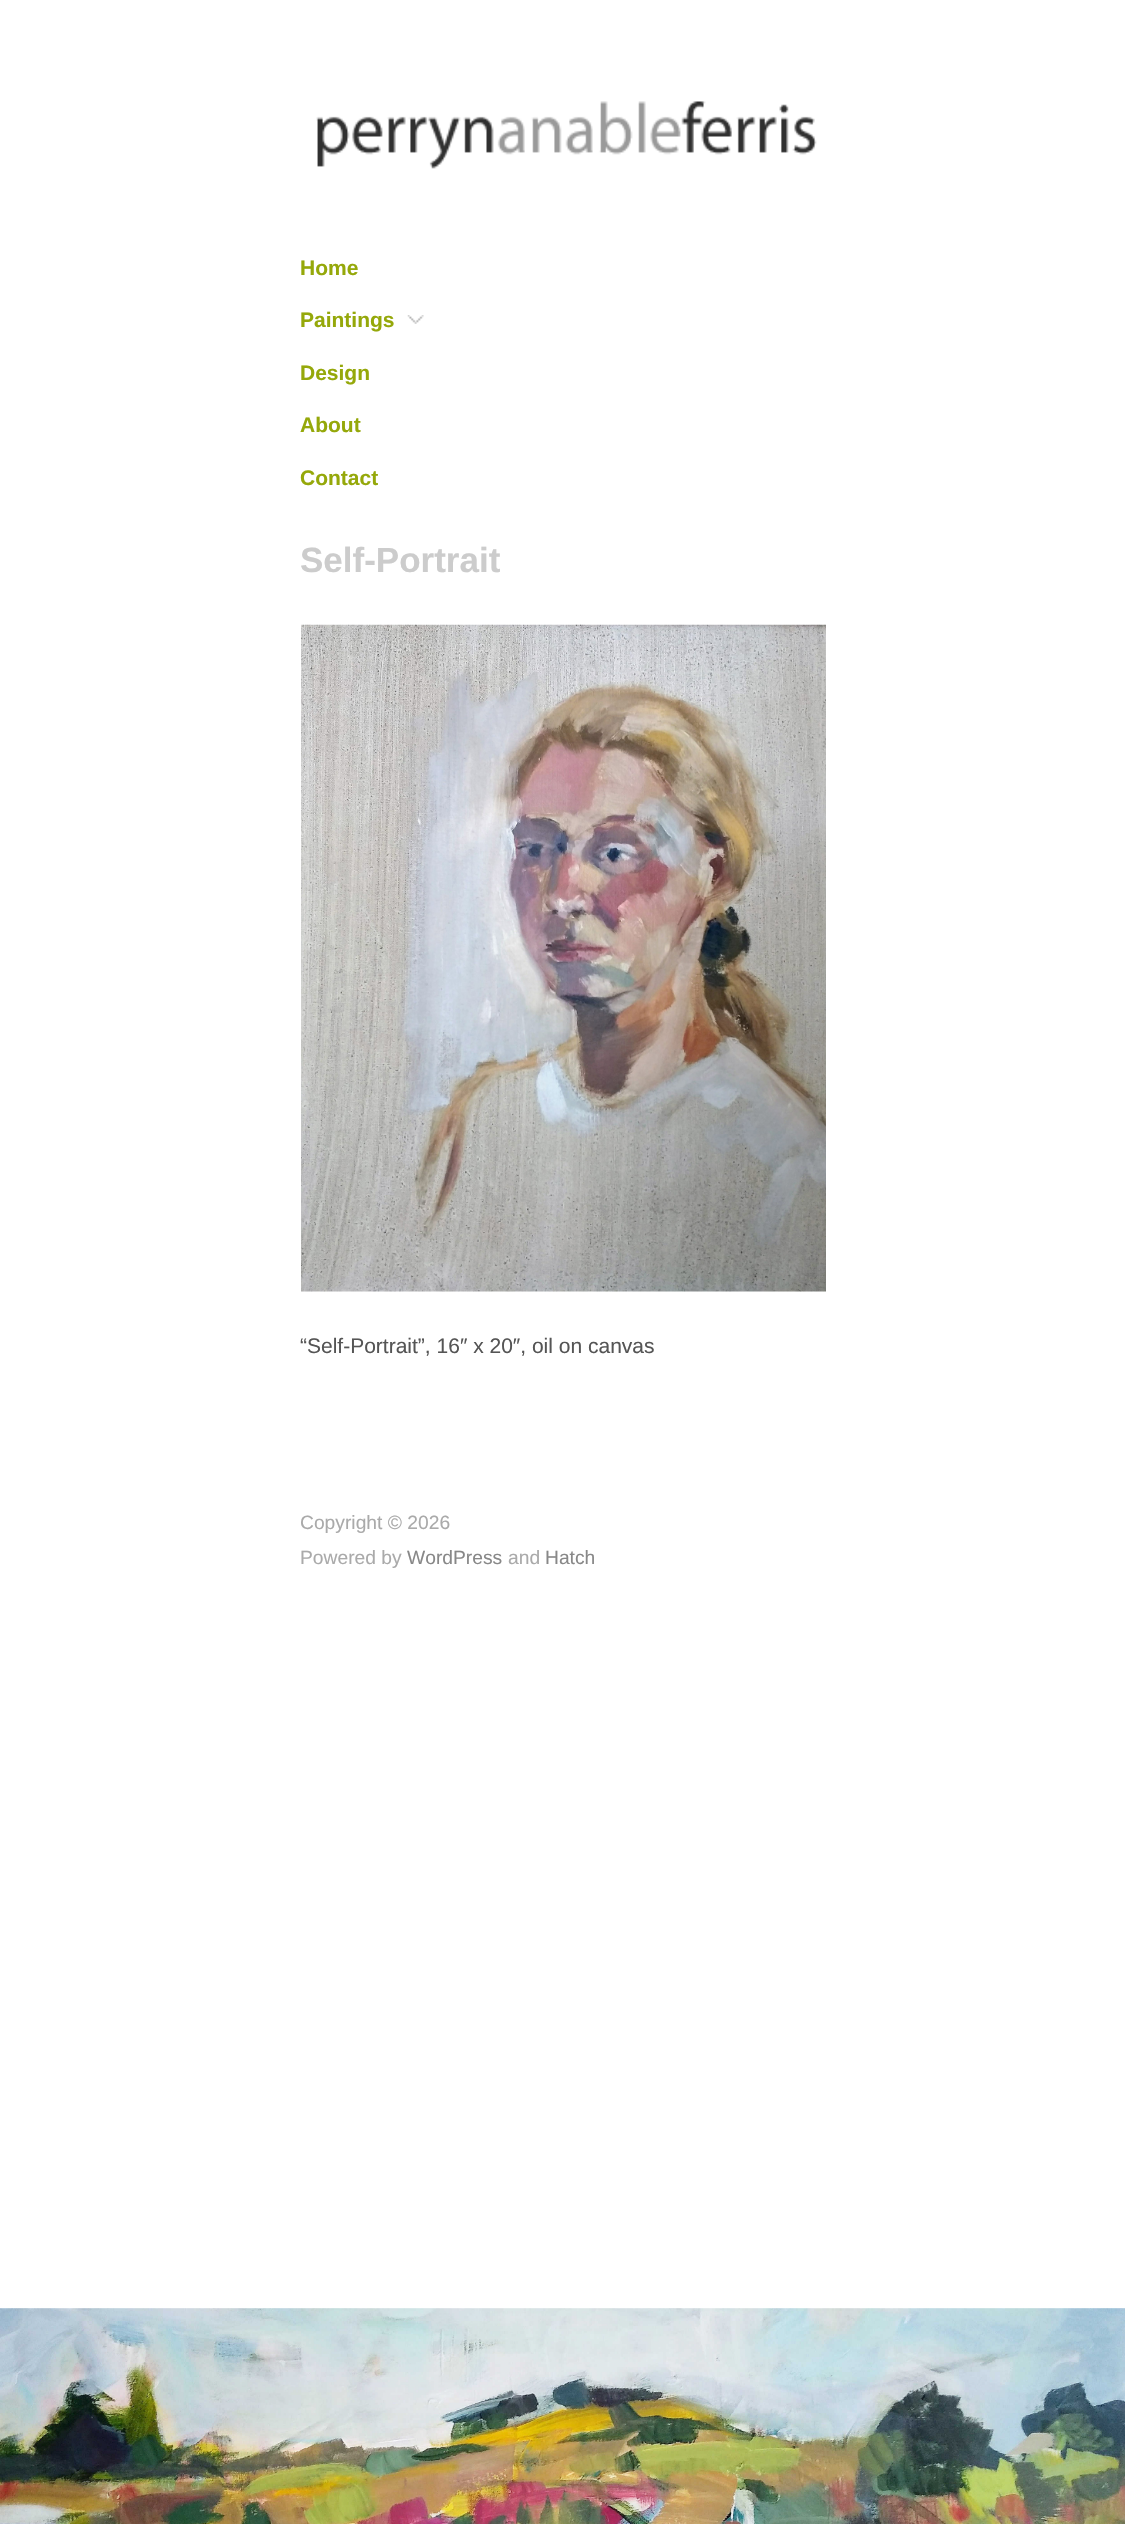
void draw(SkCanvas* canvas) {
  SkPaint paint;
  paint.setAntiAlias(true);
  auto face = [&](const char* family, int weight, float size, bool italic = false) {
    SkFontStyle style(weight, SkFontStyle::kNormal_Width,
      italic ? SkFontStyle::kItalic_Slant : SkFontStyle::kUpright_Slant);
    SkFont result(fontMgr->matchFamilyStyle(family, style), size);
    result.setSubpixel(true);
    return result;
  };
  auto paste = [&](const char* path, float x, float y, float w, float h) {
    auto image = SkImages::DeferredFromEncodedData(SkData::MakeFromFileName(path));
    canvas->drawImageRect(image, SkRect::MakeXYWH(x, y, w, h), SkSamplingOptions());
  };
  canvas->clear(0xffffffff);
  paste("img/1.png", 0, 2308, 1125, 216);
  paste("img/2.png", 316, 101, 501, 68);
  paste("img/3.png", 407, 315, 17, 9);
  paste("img/4.png", 301, 624, 525, 668);
  auto f0 = face("Liberation Sans", 700, 21);
  paint.setColor(0xff95a80a);
  {
    const struct { const char* s; float x, y; } items[] = {
      {"Home", 300, 275},
      {"Paintings", 300, 327},
      {"Design", 300, 380},
      {"About", 300, 432},
      {"Contact", 300, 485},
    };
    for (auto [s, x, y] : items) {
      canvas->drawString(s, x, y, f0, paint);
    }
  }
  auto f1 = face("Liberation Sans", 700, 35);
  paint.setColor(0xffcccccc);
  canvas->drawString("Self-Portrait", 300, 572, f1, paint);
  auto f2 = face("Liberation Sans", 400, 21);
  paint.setColor(0xff555555);
  canvas->drawString("“Self-Portrait”, 16″ x 20″, oil on canvas", 300, 1353, f2, paint);
  auto f3 = face("Liberation Sans", 400, 19.25f);
  paint.setColor(0xffaaaaaa);
  canvas->drawString("Copyright © 2026", 300, 1529, f3, paint);
  canvas->drawString("Powered by", 300, 1564, f3, paint);
  paint.setColor(0xff888888);
  canvas->drawString("WordPress", 407, 1564, f3, paint);
  paint.setColor(0xffaaaaaa);
  canvas->drawString("and", 508, 1564, f3, paint);
  paint.setColor(0xff888888);
  canvas->drawString("Hatch", 545, 1564, f3, paint);
}
